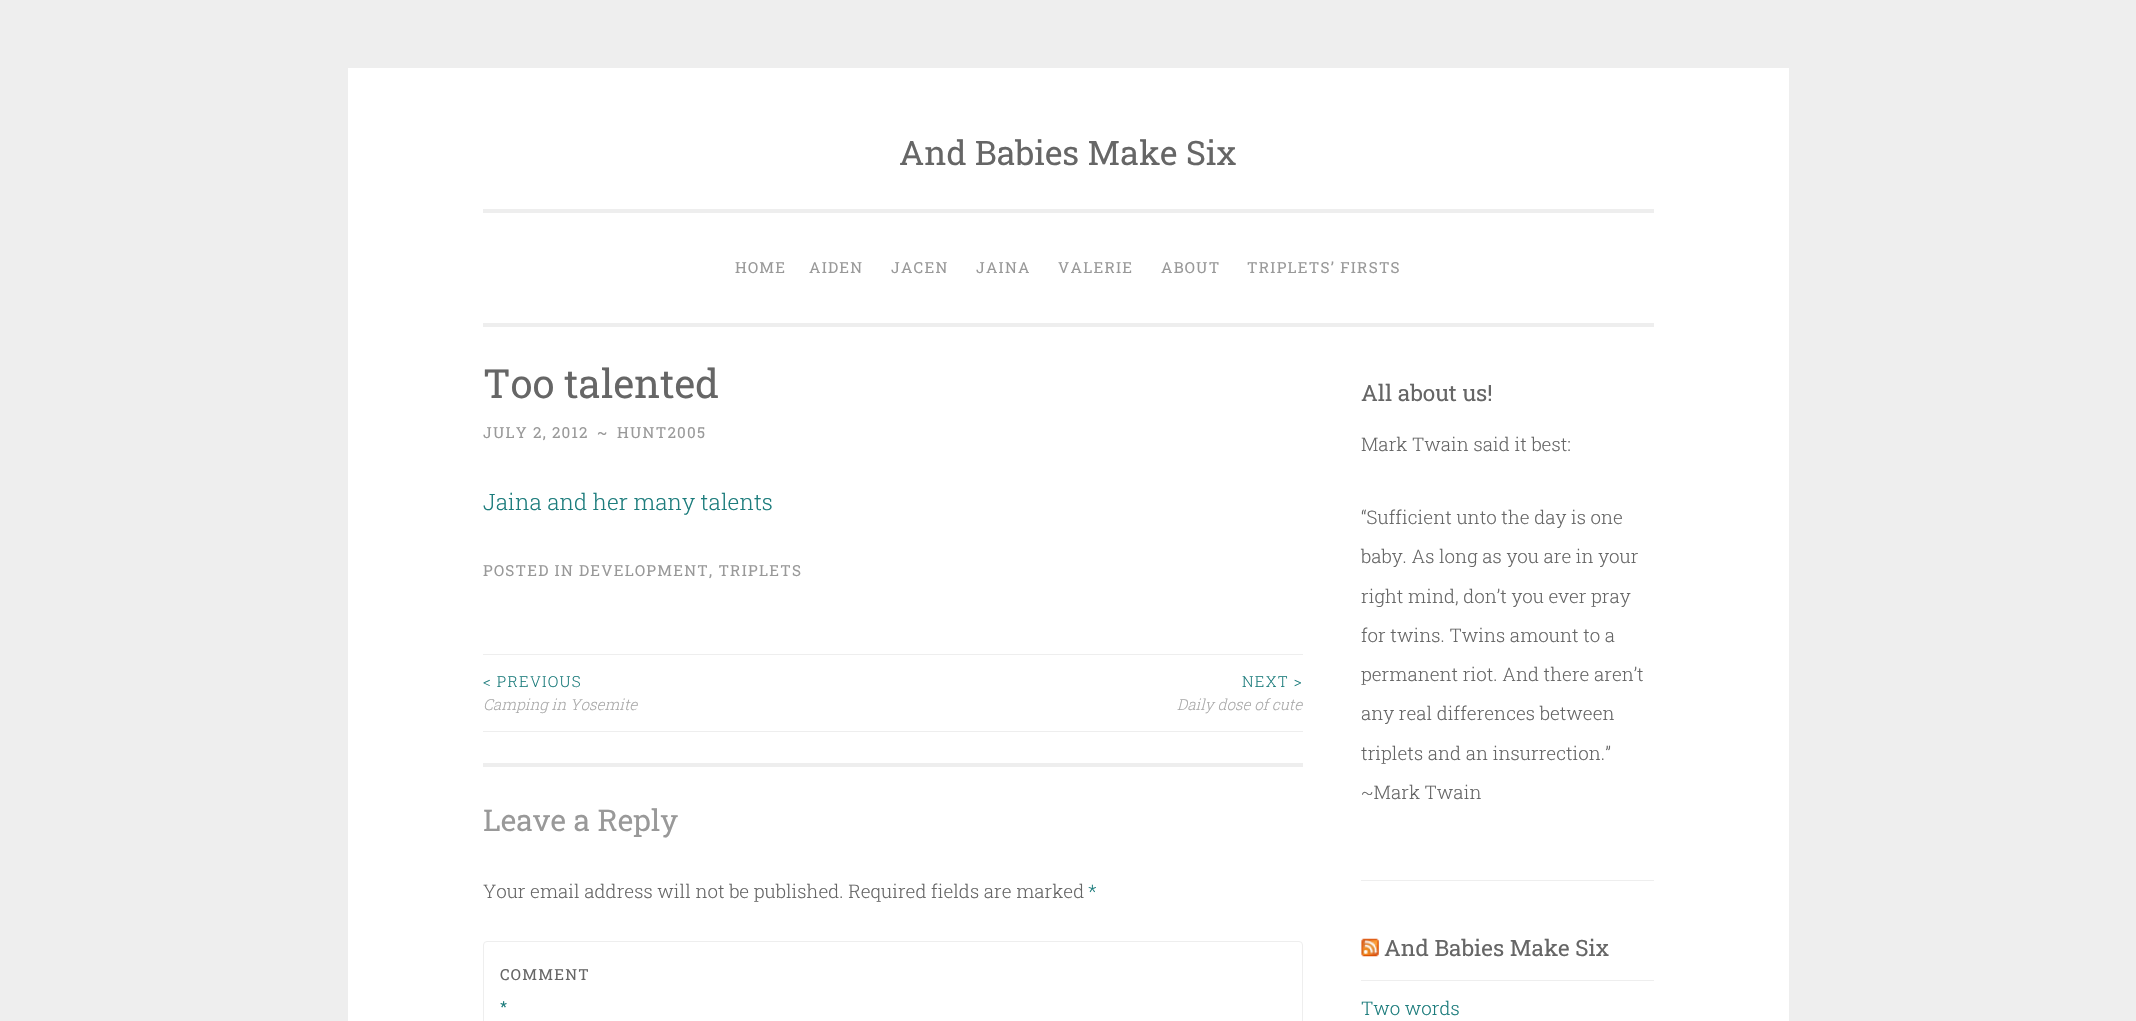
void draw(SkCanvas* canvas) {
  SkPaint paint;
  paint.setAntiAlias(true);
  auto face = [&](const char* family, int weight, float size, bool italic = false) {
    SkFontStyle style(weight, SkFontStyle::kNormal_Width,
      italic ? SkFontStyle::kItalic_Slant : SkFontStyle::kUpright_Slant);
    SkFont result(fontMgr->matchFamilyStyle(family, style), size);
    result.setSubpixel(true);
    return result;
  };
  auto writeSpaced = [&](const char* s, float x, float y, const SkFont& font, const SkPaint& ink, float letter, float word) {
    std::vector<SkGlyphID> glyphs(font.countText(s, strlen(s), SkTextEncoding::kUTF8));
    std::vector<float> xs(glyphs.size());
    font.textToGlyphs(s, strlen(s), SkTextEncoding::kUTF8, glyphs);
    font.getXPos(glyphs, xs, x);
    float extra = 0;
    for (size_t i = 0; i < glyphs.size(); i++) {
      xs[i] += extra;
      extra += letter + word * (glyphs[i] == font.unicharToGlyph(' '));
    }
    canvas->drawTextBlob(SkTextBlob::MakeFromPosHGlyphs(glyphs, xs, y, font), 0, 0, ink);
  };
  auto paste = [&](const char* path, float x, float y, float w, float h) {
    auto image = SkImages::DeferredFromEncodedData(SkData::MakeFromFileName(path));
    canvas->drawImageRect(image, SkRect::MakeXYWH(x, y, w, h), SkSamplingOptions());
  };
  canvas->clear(0xffeeeeee);
  {
    const struct { float x, y, w, h; SkColor color; } items[] = {
      {348, 68, 1441, 953, 0xffffffff},
      {483, 323, 1171, 4, 0xffeeeeee},
      {483, 209, 1171, 4, 0xffeeeeee},
      {483, 654, 820, 1, 0xffeeeeee},
      {483, 731, 820, 1, 0xffeeeeee},
      {483, 763, 820, 4, 0xffeeeeee},
    };
    for (auto [x, y, w, h, color] : items) {
      paint.setColor(color);
      canvas->drawRect(SkRect::MakeXYWH(x, y, w, h), paint);
    }
  }
  paint.setStroke(true);
  paint.setStrokeWidth(1);
  canvas->drawRoundRect(SkRect::MakeXYWH(483.5f, 941.5f, 819, 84), 3.5f, 3.5f, paint);
  paint.setStroke(false);
  canvas->drawRect(SkRect::MakeXYWH(1361, 880, 293, 1), paint);
  paste("img/1.png", 1361, 938, 18, 19);
  canvas->drawRect(SkRect::MakeXYWH(1361, 980, 293, 1), paint);
  auto f0 = face("Roboto Slab", 400, 33.75f);
  paint.setColor(0xff666666);
  canvas->drawString("And Babies Make Six", 899, 165, f0, paint);
  auto f1 = face("Roboto Slab", 400, 15.25f);
  paint.setColor(0xff999999);
  {
    const struct { const char* s; float x, y; } items[] = {
      {"HOME", 735, 273},
      {"AIDEN", 809, 273},
      {"JACEN", 891, 273},
      {"JAINA", 976, 273},
      {"VALERIE", 1058, 273},
      {"ABOUT", 1161, 273},
      {"TRIPLETS’ FIRSTS", 1247, 273},
    };
    for (auto [s, x, y] : items) {
      writeSpaced(s, x, y, f1, paint, 1.25f, 0);
    }
  }
  auto f2 = face("Roboto Slab", 400, 40);
  paint.setColor(0xff666666);
  canvas->drawString("Too talented", 483, 398, f2, paint);
  paint.setColor(0xff999999);
  {
    const struct { const char* s; float x, y; } items[] = {
      {"JULY 2, 2012", 483, 438},
      {"~", 597, 438},
      {"HUNT2005", 617, 438},
    };
    for (auto [s, x, y] : items) {
      writeSpaced(s, x, y, f1, paint, 1.25f, 0);
    }
  }
  auto f3 = face("Roboto Slab", 300, 22.5f);
  paint.setColor(0xff1c7c7c);
  canvas->drawString("Jaina and her many talents", 483, 510, f3, paint);
  paint.setColor(0xff999999);
  writeSpaced("POSTED IN DEVELOPMENT, TRIPLETS", 483, 576, f1, paint, 1.25f, 0);
  auto f4 = face("Roboto Slab", 300, 15.25f);
  paint.setColor(0xff1c7c7c);
  writeSpaced("< PREVIOUS", 483, 687, f4, paint, 1.25f, 0);
  auto f5 = face("Roboto Slab", 300, 15.25f, true);
  paint.setColor(0xffaaaaaa);
  canvas->drawString("Camping in Yosemite", 483, 710, f5, paint);
  paint.setColor(0xff1c7c7c);
  writeSpaced("NEXT >", 1242, 687, f4, paint, 1.25f, 0);
  paint.setColor(0xffaaaaaa);
  canvas->drawString("Daily dose of cute", 1177, 710, f5, paint);
  auto f6 = face("Roboto Slab", 400, 30);
  paint.setColor(0xff999999);
  canvas->drawString("Leave a Reply", 483, 831, f6, paint);
  auto f7 = face("Roboto Slab", 300, 18.75f);
  paint.setColor(0xff666666);
  canvas->drawString("Your email address will not be published. Required fields are marked", 483, 898, f7, paint);
  paint.setColor(0xff1c7c7c);
  canvas->drawString("*", 1088, 898, f7, paint);
  paint.setColor(0xff666666);
  writeSpaced("COMMENT", 500, 980, f1, paint, 1.25f, 0);
  paint.setColor(0xff1c7c7c);
  writeSpaced("*", 500, 1012, f1, paint, 1.25f, 0);
  auto f8 = face("Roboto Slab", 400, 22.5f);
  paint.setColor(0xff666666);
  canvas->drawString("All about us!", 1361, 401, f8, paint);
  {
    const struct { const char* s; float x, y; } items[] = {
      {"Mark Twain said it best:", 1361, 451},
      {"“Sufficient unto the day is one", 1361, 524},
      {"baby. As long as you are in your", 1361, 563},
      {"right mind, don’t you ever pray", 1361, 603},
      {"for twins. Twins amount to a", 1361, 642},
      {"permanent riot. And there aren’t", 1361, 681},
      {"any real differences between", 1361, 720},
      {"triplets and an insurrection.”", 1361, 760},
      {"~Mark Twain", 1361, 799},
    };
    for (auto [s, x, y] : items) {
      canvas->drawString(s, x, y, f7, paint);
    }
  }
  canvas->drawString("And Babies Make Six", 1384, 956, f8, paint);
  paint.setColor(0xff1c7c7c);
  canvas->drawString("Two words", 1361, 1015, f7, paint);
}
